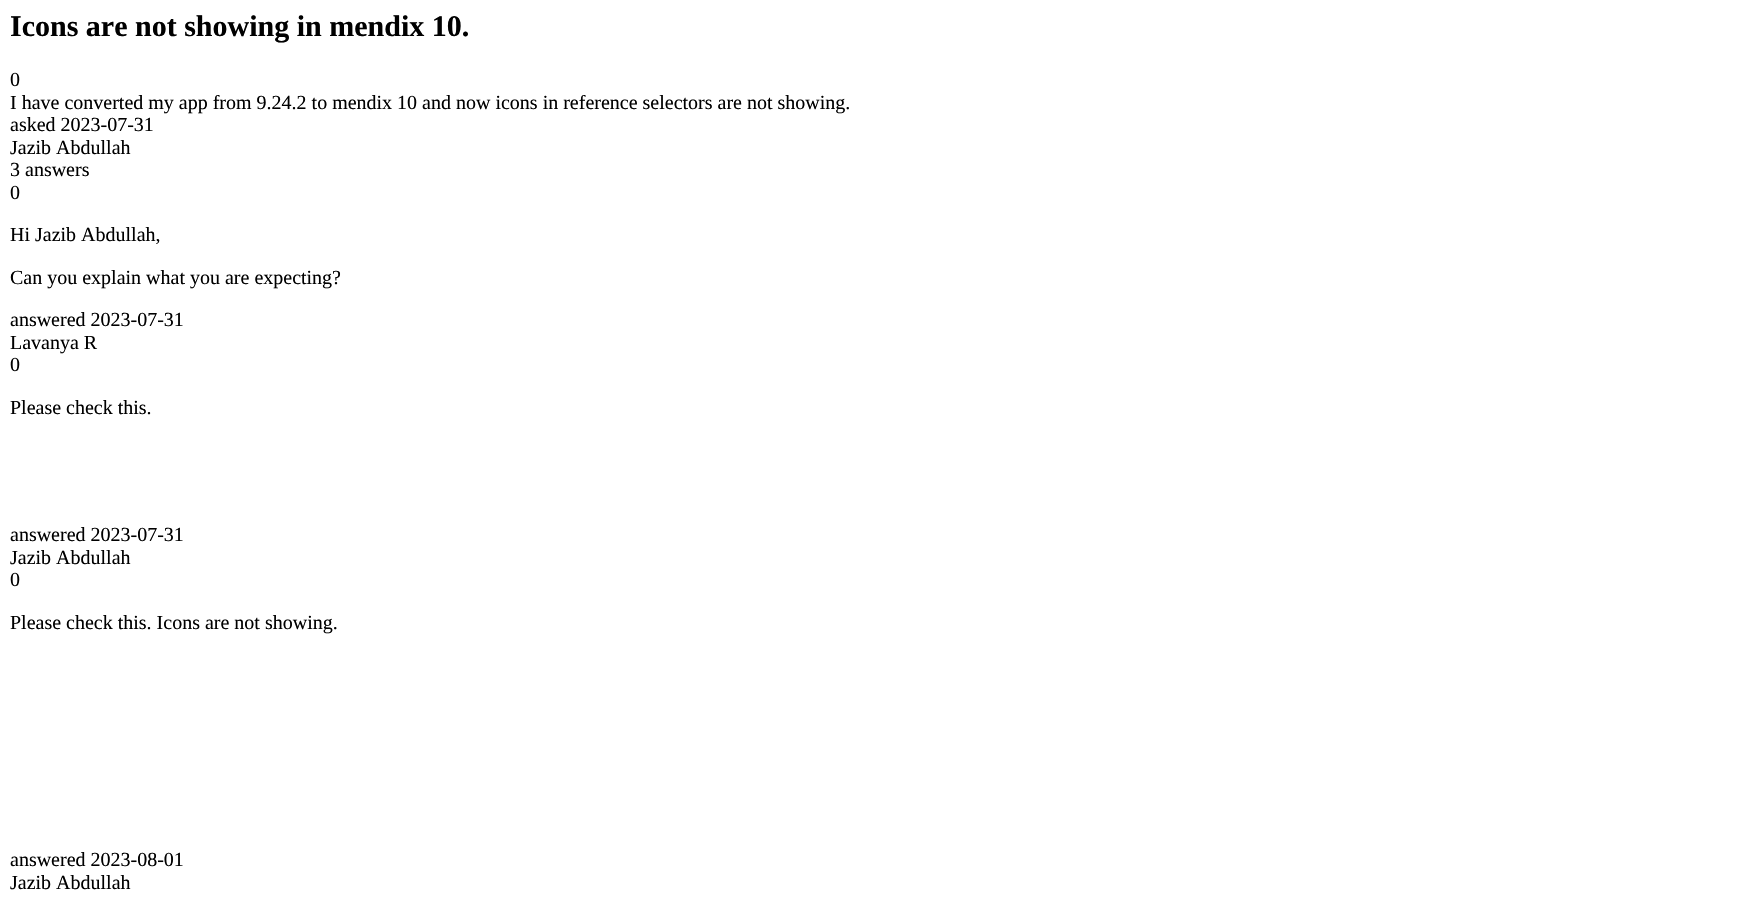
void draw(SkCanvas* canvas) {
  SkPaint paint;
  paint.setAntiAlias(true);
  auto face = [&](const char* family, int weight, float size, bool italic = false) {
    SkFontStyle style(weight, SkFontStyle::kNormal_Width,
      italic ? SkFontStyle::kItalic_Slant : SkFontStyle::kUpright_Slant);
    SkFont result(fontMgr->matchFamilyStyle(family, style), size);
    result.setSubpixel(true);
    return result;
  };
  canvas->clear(0xffffffff);
  auto f0 = face("Liberation Serif", 700, 30);
  paint.setColor(0xff000000);
  canvas->drawString("Icons are not showing in mendix 10.", 10, 36, f0, paint);
  auto f1 = face("Liberation Serif", 400, 20);
  {
    const struct { const char* s; float x, y; } items[] = {
      {"0", 10, 86},
      {"I have converted my app from 9.24.2 to mendix 10 and now icons in reference selectors are not showing.", 10, 109},
      {"asked 2023-07-31", 10, 131},
      {"Jazib Abdullah", 10, 154},
      {"3 answers", 10, 176},
      {"0", 10, 199},
      {"Hi Jazib Abdullah,", 10, 241},
      {"Can you explain what you are expecting?", 10, 284},
      {"answered 2023-07-31", 10, 326},
      {"Lavanya R", 10, 349},
      {"0", 10, 371},
      {"Please check this.", 10, 414},
      {"answered 2023-07-31", 10, 541},
      {"Jazib Abdullah", 10, 564},
      {"0", 10, 586},
      {"Please check this. Icons are not showing.", 10, 629},
      {"answered 2023-08-01", 10, 866},
      {"Jazib Abdullah", 10, 889},
    };
    for (auto [s, x, y] : items) {
      canvas->drawString(s, x, y, f1, paint);
    }
  }
}
